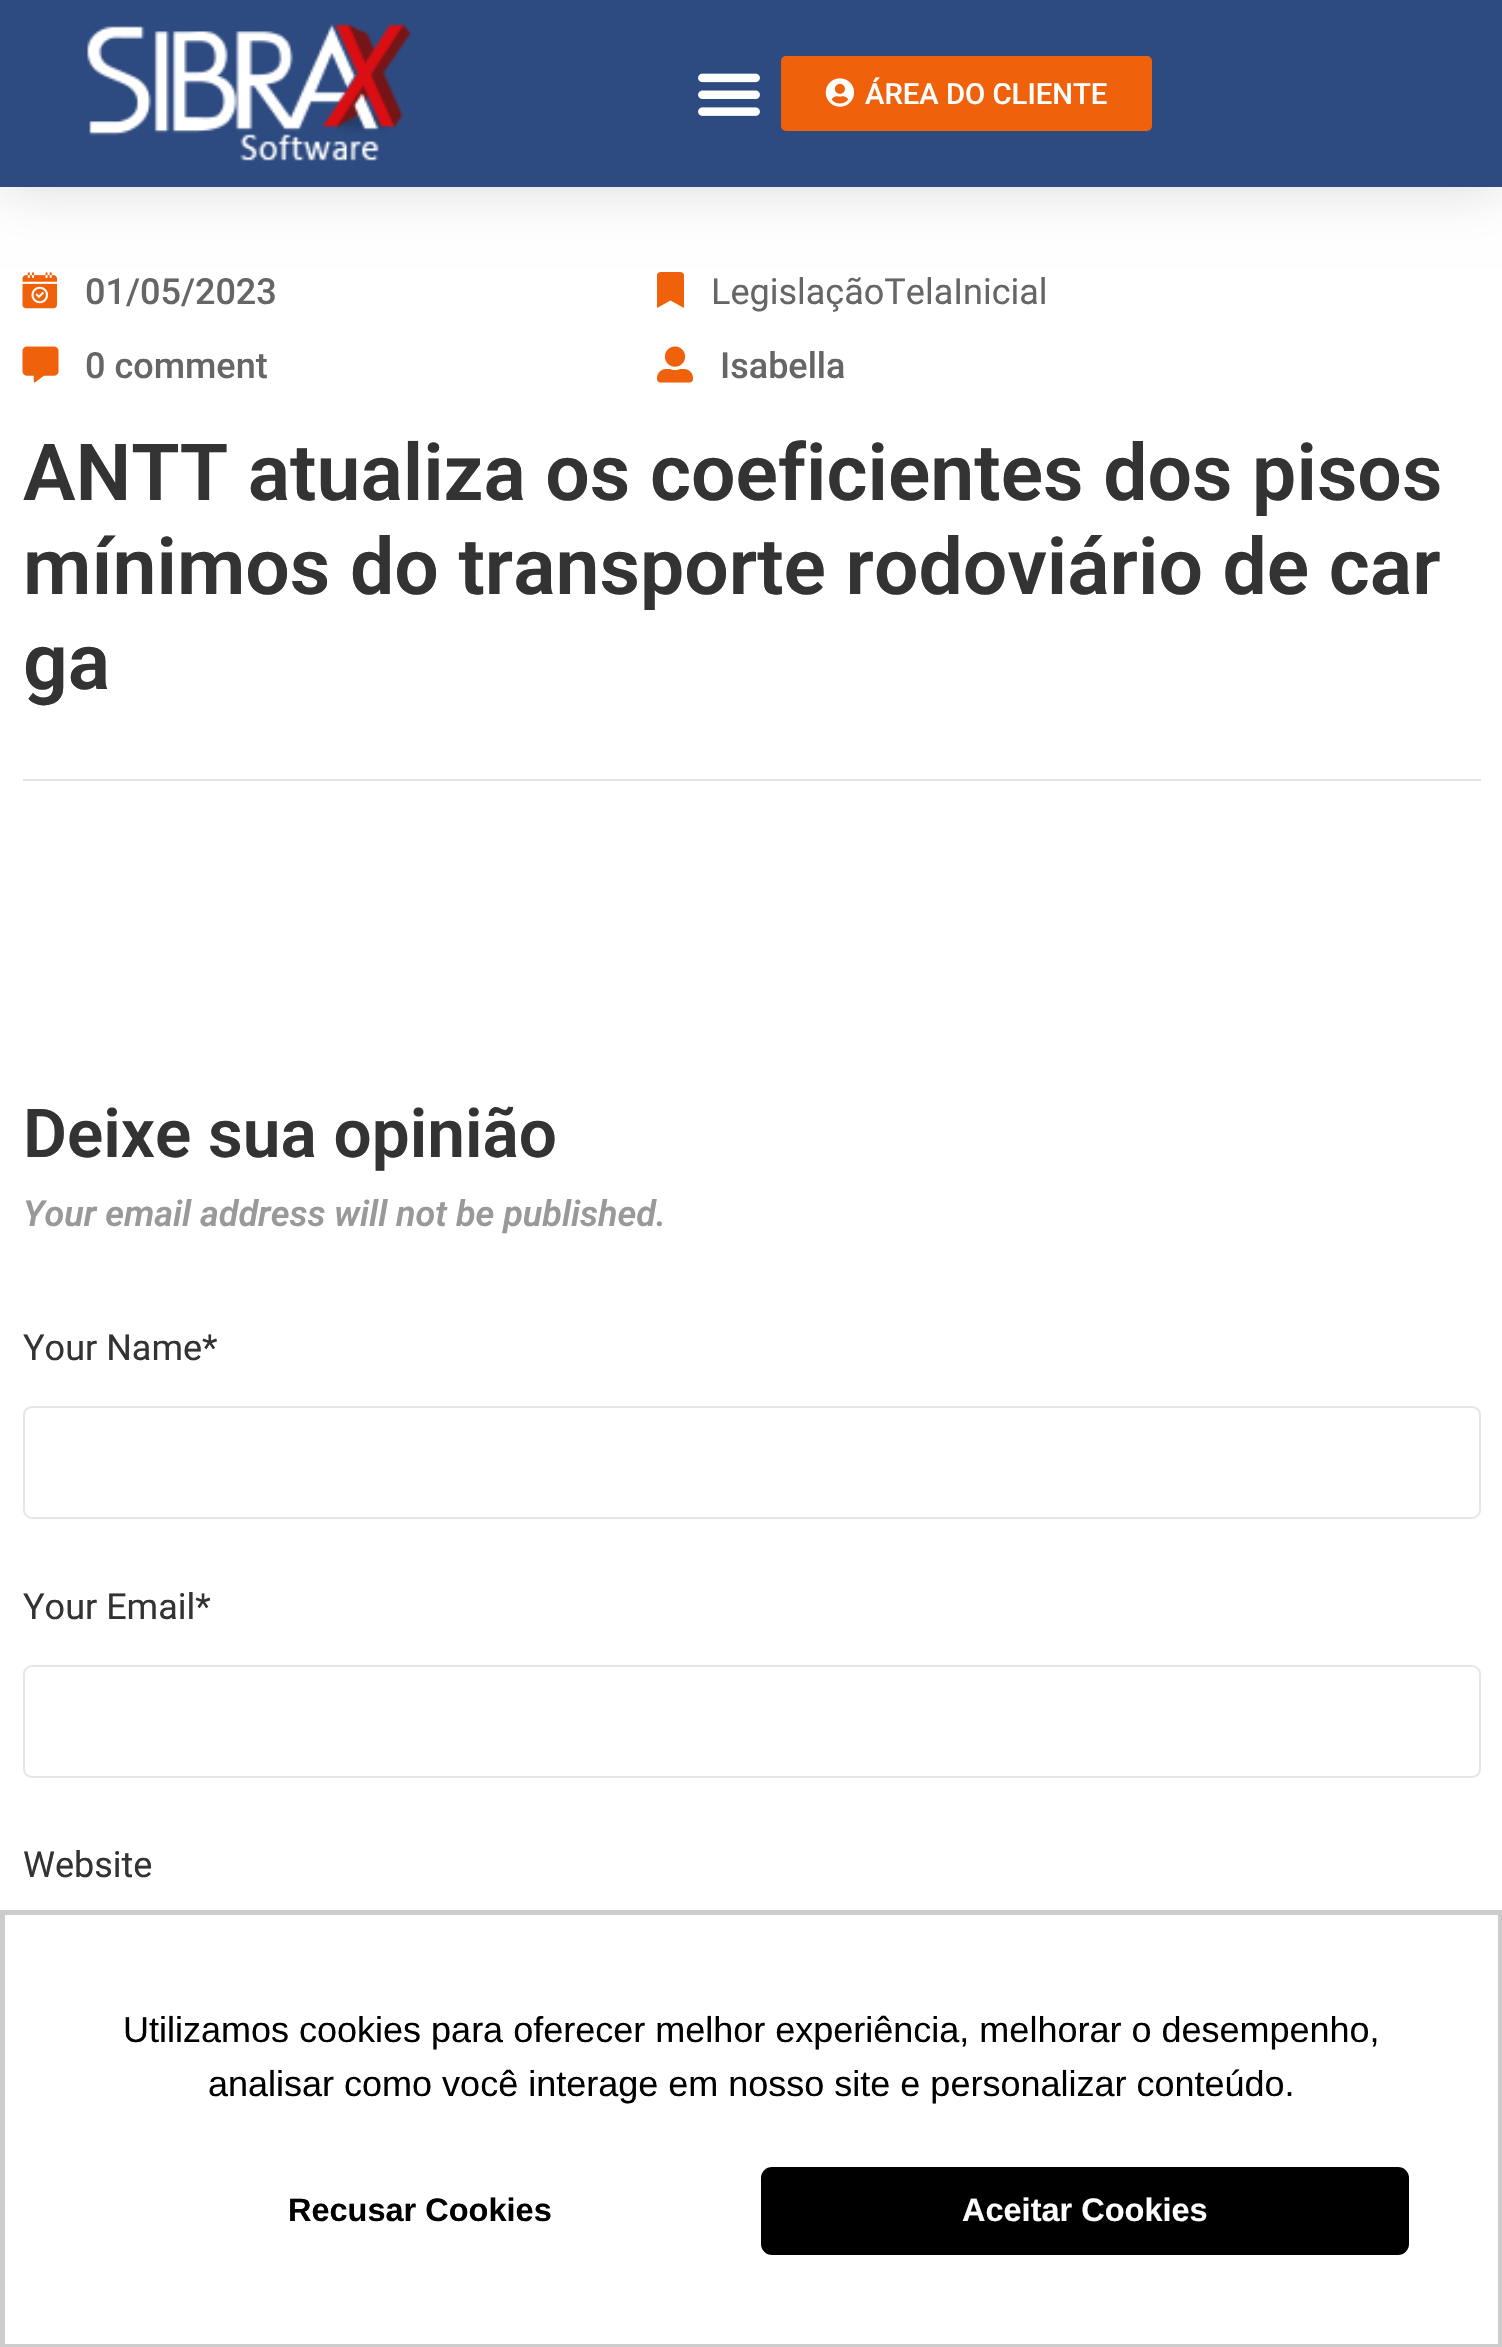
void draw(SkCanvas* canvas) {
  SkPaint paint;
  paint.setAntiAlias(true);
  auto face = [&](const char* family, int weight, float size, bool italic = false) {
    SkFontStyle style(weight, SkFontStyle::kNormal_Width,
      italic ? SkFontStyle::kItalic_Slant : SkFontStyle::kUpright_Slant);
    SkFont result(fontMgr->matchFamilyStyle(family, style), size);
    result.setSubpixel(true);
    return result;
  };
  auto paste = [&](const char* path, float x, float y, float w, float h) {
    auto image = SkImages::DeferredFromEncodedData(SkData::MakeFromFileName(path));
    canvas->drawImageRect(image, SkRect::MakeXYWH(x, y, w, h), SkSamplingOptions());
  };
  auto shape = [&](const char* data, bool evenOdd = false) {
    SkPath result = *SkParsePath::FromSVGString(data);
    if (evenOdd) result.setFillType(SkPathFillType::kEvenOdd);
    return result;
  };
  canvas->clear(0xffffffff);
  paint.setColor(0x26000000);
  paint.setMaskFilter(SkMaskFilter::MakeBlur(kNormal_SkBlurStyle, 27));
  canvas->drawRect(SkRect::MakeXYWH(0, 0, 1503, 187), paint);
  paint.setMaskFilter(nullptr);
  paint.setColor(0xff2d4b81);
  canvas->drawRect(SkRect::MakeXYWH(0, 0, 1502, 187), paint);
  paste("img/1.png", 87, 24, 325, 137);
  paste("img/2.png", 698, 73, 62, 43);
  paint.setColor(0xfff0610c);
  canvas->drawRoundRect(SkRect::MakeXYWH(781, 56, 371, 75), 5, 5, paint);
  paste("img/3.png", 825, 78, 30, 29);
  paste("img/4.png", 22, 272, 36, 37);
  canvas->drawPath(shape("M657 308V275C657.5 271.5 661.5 272 664 272H677C679.5 272 683.5 271.5 684 275V308L670.5 300.5Z"), paint);
  paste("img/5.png", 22, 346, 37, 37);
  paste("img/6.png", 657, 346, 36, 37);
  paint.setColor(0xffe5e5e5);
  canvas->drawRect(SkRect::MakeXYWH(23, 779, 1458, 2), paint);
  paint.setStroke(true);
  paint.setStrokeWidth(2);
  canvas->drawRoundRect(SkRect::MakeXYWH(24, 1407, 1456, 111), 8, 8, paint);
  canvas->drawRoundRect(SkRect::MakeXYWH(24, 1666, 1456, 111), 8, 8, paint);
  paint.setStrokeWidth(5);
  paint.setColor(0xffcccccc);
  canvas->drawRect(SkRect::MakeXYWH(2.5f, 1912.5f, 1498, 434), paint);
  paint.setStroke(false);
  paint.setColor(0xff000000);
  canvas->drawRoundRect(SkRect::MakeXYWH(761, 2167, 648, 88), 11, 11, paint);
  auto f0 = face("Roboto", 500, 29.25f);
  paint.setColor(0xffffffff);
  canvas->drawString("ÁREA DO CLIENTE", 865, 104, f0, paint);
  auto f1 = face("Roboto", 500, 36);
  paint.setColor(0xff666666);
  canvas->drawString("01/05/2023", 85, 304, f1, paint);
  auto f2 = face("Roboto", 400, 36);
  canvas->drawString("LegislaçãoTelaInicial", 711, 304, f2, paint);
  canvas->drawString("0 comment", 85, 378, f1, paint);
  canvas->drawString("Isabella", 720, 378, f1, paint);
  auto f3 = face("Roboto", 600, 78.75f);
  paint.setColor(0xff333333);
  {
    const struct { const char* s; float x, y; } items[] = {
      {"ANTT atualiza os coeficientes dos pisos", 23, 500},
      {"mínimos do transporte rodoviário de car", 23, 594},
      {"ga", 23, 689},
    };
    for (auto [s, x, y] : items) {
      canvas->drawString(s, x, y, f3, paint);
    }
  }
  auto f4 = face("Roboto", 600, 67.5f);
  canvas->drawString("Deixe sua opinião", 23, 1157, f4, paint);
  auto f5 = face("Roboto", 600, 36, true);
  paint.setColor(0xff999999);
  canvas->drawString("Your email address will not be published.", 23, 1226, f5, paint);
  paint.setColor(0xff333333);
  {
    const struct { const char* s; float x, y; } items[] = {
      {"Your Name*", 23, 1360},
      {"Your Email*", 23, 1619},
      {"Website", 23, 1877},
    };
    for (auto [s, x, y] : items) {
      canvas->drawString(s, x, y, f2, paint);
    }
  }
  auto f6 = face("Liberation Sans", 400, 36);
  paint.setColor(0xff000000);
  canvas->drawString("Utilizamos cookies para oferecer melhor experiência, melhorar o desempenho,", 123, 2042, f6, paint);
  canvas->drawString("analisar como você interage em nosso site e personalizar conteúdo.", 208, 2096, f6, paint);
  auto f7 = face("Liberation Sans", 700, 32.5f);
  canvas->drawString("Recusar Cookies", 288, 2221, f7, paint);
  paint.setColor(0xffffffff);
  canvas->drawString("Aceitar Cookies", 962, 2221, f7, paint);
}
